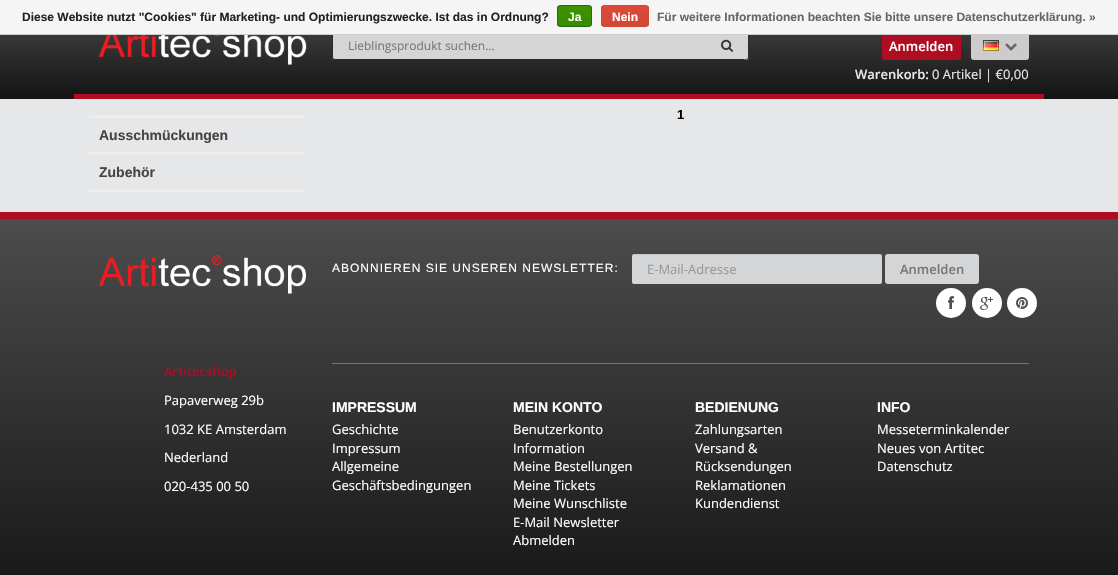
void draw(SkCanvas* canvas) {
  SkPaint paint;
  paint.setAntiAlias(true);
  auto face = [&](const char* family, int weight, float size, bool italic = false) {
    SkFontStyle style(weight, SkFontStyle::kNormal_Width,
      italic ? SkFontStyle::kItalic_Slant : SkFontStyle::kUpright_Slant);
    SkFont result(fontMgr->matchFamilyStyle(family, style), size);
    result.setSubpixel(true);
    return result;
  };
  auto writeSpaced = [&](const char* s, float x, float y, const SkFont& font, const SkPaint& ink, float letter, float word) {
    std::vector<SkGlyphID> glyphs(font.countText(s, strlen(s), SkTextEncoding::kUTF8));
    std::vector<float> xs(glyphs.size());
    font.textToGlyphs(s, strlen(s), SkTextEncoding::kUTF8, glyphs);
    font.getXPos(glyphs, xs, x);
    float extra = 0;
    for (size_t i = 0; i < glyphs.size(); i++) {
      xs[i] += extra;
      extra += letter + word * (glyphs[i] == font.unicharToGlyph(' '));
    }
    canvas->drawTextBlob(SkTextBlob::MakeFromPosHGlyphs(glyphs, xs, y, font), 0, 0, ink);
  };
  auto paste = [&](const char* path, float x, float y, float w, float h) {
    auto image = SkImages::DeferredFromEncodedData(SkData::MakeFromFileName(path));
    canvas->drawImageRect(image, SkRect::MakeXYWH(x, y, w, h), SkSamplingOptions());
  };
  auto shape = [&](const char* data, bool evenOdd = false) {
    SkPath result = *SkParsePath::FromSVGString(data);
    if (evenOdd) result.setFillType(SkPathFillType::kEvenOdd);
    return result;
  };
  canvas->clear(0xffe6e7e9);
  {
    const SkColor colors[] = {0xff4c4c4c, 0xff131313};
    const float stops[] = {0, 1};
    const SkPoint ends[] = {{559, 0}, {559, 99}};
    paint.setShader(SkGradientShader::MakeLinear(ends, colors, stops, 2, SkTileMode::kClamp));
    paint.setAlpha(255);
  }
  canvas->drawRect(SkRect::MakeXYWH(0, 35, 1118, 64), paint);
  paint.setShader(nullptr);
  paint.setColor(0xffd4d5d7);
  canvas->drawPath(shape("M706 30H746C747.5 30 749 31.5 749 33V57C749 58.5 747.5 60 746 60H706Z"), paint);
  paint.setColor(0xff2c2a2b);
  canvas->drawPath(shape("M706 30H739C752 30 749 31 749 45C749 59 752 60 739 60H706ZM706 31H746C747 31 748 32 748 33V57C748 58 747 59 746 59H706Z", true), paint);
  paint.setColor(0xffd4d5d7);
  canvas->drawPath(shape("M335 30H707V60H335C333.5 60 332 58.5 332 57V33C332 31.5 333.5 30 335 30Z"), paint);
  paint.setColor(0xff2c2a2b);
  canvas->drawPath(shape("M335 30H707V60H335C333 60 332 59 332 57V33C332 31 333 30 335 30ZM335 31H707V59H335C334 59 333 58 333 57V33C333 32 334 31 335 31Z", true), paint);
  paint.setColor(0xffaf0d22);
  canvas->drawRoundRect(SkRect::MakeXYWH(882, 30, 79, 30), 3, 3, paint);
  paint.setColor(0xffcccccc);
  canvas->drawRoundRect(SkRect::MakeXYWH(971, 30, 58, 30), 3, 3, paint);
  paint.setColor(0xfff5f5f5);
  canvas->drawRect(SkRect::MakeXYWH(0, 0, 1118, 34), paint);
  paint.setColor(0xffcccccc);
  canvas->drawRect(SkRect::MakeXYWH(0, 34, 1118, 1), paint);
  canvas->save();
  canvas->clipPath(shape("M560 5H589C590.5 5 592 6.5 592 8V24C592 25.5 590.5 27 589 27H560C558.5 27 557 25.5 557 24V8C557 6.5 558.5 5 560 5Z"), true);
  {
    const SkColor colors[] = {0xff3c9300, 0xff398a00};
    const float stops[] = {0, 1};
    const SkPoint ends[] = {{575, 6}, {575, 26}};
    paint.setShader(SkGradientShader::MakeLinear(ends, colors, stops, 2, SkTileMode::kClamp));
    paint.setAlpha(255);
  }
  canvas->drawRect(SkRect::MakeXYWH(557, 6, 35, 20), paint);
  canvas->restore();
  paint.setStroke(true);
  paint.setStrokeWidth(1);
  paint.setShader(nullptr);
  paint.setColor(0xff29691d);
  canvas->drawRoundRect(SkRect::MakeXYWH(557.5f, 5.5f, 34, 21), 2.5f, 2.5f, paint);
  canvas->save();
  canvas->clipPath(shape("M604 5H646C647.5 5 649 6.5 649 8V24C649 25.5 647.5 27 646 27H604C602.5 27 601 25.5 601 24V8C601 6.5 602.5 5 604 5Z"), true);
  paint.setStroke(false);
  {
    const SkColor colors[] = {0xffdc4a38, 0xffd14836};
    const float stops[] = {0, 1};
    const SkPoint ends[] = {{625, 6}, {625, 26}};
    paint.setShader(SkGradientShader::MakeLinear(ends, colors, stops, 2, SkTileMode::kClamp));
    paint.setAlpha(255);
  }
  canvas->drawRect(SkRect::MakeXYWH(601, 6, 48, 20), paint);
  canvas->restore();
  paint.setStroke(true);
  paint.setShader(nullptr);
  paint.setColor(0xffd14836);
  canvas->drawRoundRect(SkRect::MakeXYWH(601.5f, 5.5f, 47, 21), 2.5f, 2.5f, paint);
  paint.setStroke(false);
  paint.setColor(0xffaf0d22);
  canvas->drawRect(SkRect::MakeXYWH(74, 94, 970, 5), paint);
  paste("img/1.png", 98, 35, 209, 30);
  paste("img/2.png", 721, 39, 12, 13);
  paste("img/3.png", 983, 40, 16, 11);
  paste("img/4.png", 1005, 43, 12, 8);
  {
    const struct { float x, y, w, h; SkColor color; } items[] = {
      {89, 115, 216, 3, 0xffeeeeee},
      {89, 152, 216, 3, 0xffeeeeee},
      {89, 189, 216, 3, 0xffeeeeee},
    };
    for (auto [x, y, w, h, color] : items) {
      paint.setColor(color);
      canvas->drawRect(SkRect::MakeXYWH(x, y, w, h), paint);
    }
  }
  {
    const SkColor colors[] = {0xff4c4c4c, 0xff131313};
    const float stops[] = {0, 1};
    const SkPoint ends[] = {{559, 219}, {559, 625}};
    paint.setShader(SkGradientShader::MakeLinear(ends, colors, stops, 2, SkTileMode::kClamp));
    paint.setAlpha(255);
  }
  canvas->drawRect(SkRect::MakeXYWH(0, 219, 1118, 356), paint);
  paint.setShader(nullptr);
  paint.setColor(0xffaf0d22);
  canvas->drawRect(SkRect::MakeXYWH(0, 212, 1118, 7), paint);
  paste("img/5.png", 98, 254, 208, 40);
  paint.setColor(0xff777777);
  canvas->drawRect(SkRect::MakeXYWH(332, 363, 697, 1), paint);
  paint.setColor(0xffd4d5d7);
  canvas->drawRoundRect(SkRect::MakeXYWH(632, 254, 250, 30), 2, 2, paint);
  paint.setColor(0x12000000);
  canvas->drawPath(shape("M634 255H880C881 255 882 256 882 257C882 256 882 254 880 254H634C632 254 632 256 632 257C632 256 633 255 634 255Z"), paint);
  paint.setColor(0xffd4d5d7);
  canvas->drawRoundRect(SkRect::MakeXYWH(885, 254, 94, 30), 3, 3, paint);
  paint.setColor(0xffffffff);
  canvas->drawCircle(951, 303, 15, paint);
  paste("img/6.png", 948, 296, 6, 13);
  canvas->drawCircle(987, 303, 15, paint);
  paste("img/7.png", 980, 297, 13, 13);
  canvas->drawCircle(1022, 303, 15, paint);
  paste("img/8.png", 1016, 297, 12, 12);
  auto f0 = face("Liberation Sans", 700, 12);
  paint.setColor(0xff222222);
  canvas->drawString("Diese Website nutzt \"Cookies\" für Marketing- und Optimierungszwecke. Ist das in Ordnung?", 22, 21, f0, paint);
  paint.setColor(0xffffffff);
  canvas->drawString("Ja", 568, 21, f0, paint);
  canvas->drawString("Nein", 612, 21, f0, paint);
  paint.setColor(0xff666666);
  canvas->drawString("Für weitere Informationen beachten Sie bitte unsere Datenschutzerklärung. »", 657, 21, f0, paint);
  auto f1 = face("Open Sans", 400, 12);
  paint.setColor(0xff777777);
  canvas->drawString("Lieblingsprodukt suchen...", 348, 50, f1, paint);
  auto f2 = face("Open Sans", 600, 13);
  paint.setColor(0xffffffff);
  canvas->drawString("Anmelden", 889, 51, f2, paint);
  paint.setColor(0xffe6e7e9);
  canvas->drawString("Warenkorb:", 855, 79, f2, paint);
  auto f3 = face("Open Sans", 400, 13);
  canvas->drawString("0 Artikel | €0,00", 932, 79, f3, paint);
  auto f4 = face("Liberation Sans", 700, 13);
  paint.setColor(0xff000000);
  canvas->drawString("1", 677, 119, f4, paint);
  auto f5 = face("Liberation Sans", 700, 14);
  paint.setColor(0xff444444);
  canvas->drawString("Ausschmückungen", 99, 140, f5, paint);
  canvas->drawString("Zubehör", 99, 177, f5, paint);
  paint.setColor(0xffaf0d22);
  canvas->drawString("Artitecshop", 164, 376, f2, paint);
  paint.setColor(0xffffffff);
  {
    const struct { const char* s; float x, y; } items[] = {
      {"Papaverweg 29b", 164, 405},
      {"1032 KE Amsterdam", 164, 434},
      {"Nederland", 164, 462},
      {"020-435 00 50", 164, 491},
    };
    for (auto [s, x, y] : items) {
      canvas->drawString(s, x, y, f3, paint);
    }
  }
  auto f6 = face("Liberation Sans", 400, 12);
  writeSpaced("ABONNIEREN SIE UNSEREN NEWSLETTER:", 332, 272, f6, paint, 1, 0);
  paint.setColor(0xff999999);
  canvas->drawString("E-Mail-Adresse", 647, 274, f3, paint);
  paint.setColor(0xff777777);
  canvas->drawString("Anmelden", 900, 274, f2, paint);
  paint.setColor(0xffffffff);
  canvas->drawString("IMPRESSUM", 332, 412, f5, paint);
  {
    const struct { const char* s; float x, y; } items[] = {
      {"Geschichte", 332, 434},
      {"Impressum", 332, 453},
      {"Allgemeine", 332, 471},
      {"Geschäftsbedingungen", 332, 490},
    };
    for (auto [s, x, y] : items) {
      canvas->drawString(s, x, y, f3, paint);
    }
  }
  canvas->drawString("MEIN KONTO", 513, 412, f5, paint);
  {
    const struct { const char* s; float x, y; } items[] = {
      {"Benutzerkonto", 513, 434},
      {"Information", 513, 453},
      {"Meine Bestellungen", 513, 471},
      {"Meine Tickets", 513, 490},
      {"Meine Wunschliste", 513, 508},
      {"E-Mail Newsletter", 513, 527},
      {"Abmelden", 513, 545},
    };
    for (auto [s, x, y] : items) {
      canvas->drawString(s, x, y, f3, paint);
    }
  }
  canvas->drawString("BEDIENUNG", 695, 412, f5, paint);
  {
    const struct { const char* s; float x, y; } items[] = {
      {"Zahlungsarten", 695, 434},
      {"Versand &", 695, 453},
      {"Rücksendungen", 695, 471},
      {"Reklamationen", 695, 490},
      {"Kundendienst", 695, 508},
    };
    for (auto [s, x, y] : items) {
      canvas->drawString(s, x, y, f3, paint);
    }
  }
  canvas->drawString("INFO", 877, 412, f5, paint);
  {
    const struct { const char* s; float x, y; } items[] = {
      {"Messeterminkalender", 877, 434},
      {"Neues von Artitec", 877, 453},
      {"Datenschutz", 877, 471},
    };
    for (auto [s, x, y] : items) {
      canvas->drawString(s, x, y, f3, paint);
    }
  }
}
